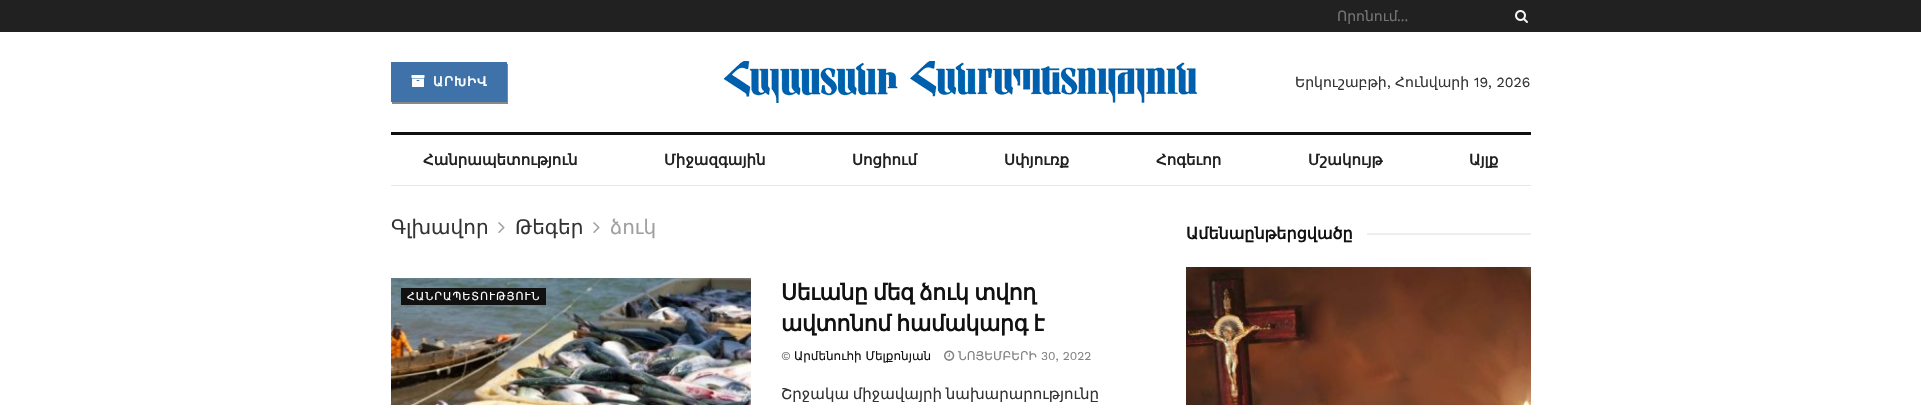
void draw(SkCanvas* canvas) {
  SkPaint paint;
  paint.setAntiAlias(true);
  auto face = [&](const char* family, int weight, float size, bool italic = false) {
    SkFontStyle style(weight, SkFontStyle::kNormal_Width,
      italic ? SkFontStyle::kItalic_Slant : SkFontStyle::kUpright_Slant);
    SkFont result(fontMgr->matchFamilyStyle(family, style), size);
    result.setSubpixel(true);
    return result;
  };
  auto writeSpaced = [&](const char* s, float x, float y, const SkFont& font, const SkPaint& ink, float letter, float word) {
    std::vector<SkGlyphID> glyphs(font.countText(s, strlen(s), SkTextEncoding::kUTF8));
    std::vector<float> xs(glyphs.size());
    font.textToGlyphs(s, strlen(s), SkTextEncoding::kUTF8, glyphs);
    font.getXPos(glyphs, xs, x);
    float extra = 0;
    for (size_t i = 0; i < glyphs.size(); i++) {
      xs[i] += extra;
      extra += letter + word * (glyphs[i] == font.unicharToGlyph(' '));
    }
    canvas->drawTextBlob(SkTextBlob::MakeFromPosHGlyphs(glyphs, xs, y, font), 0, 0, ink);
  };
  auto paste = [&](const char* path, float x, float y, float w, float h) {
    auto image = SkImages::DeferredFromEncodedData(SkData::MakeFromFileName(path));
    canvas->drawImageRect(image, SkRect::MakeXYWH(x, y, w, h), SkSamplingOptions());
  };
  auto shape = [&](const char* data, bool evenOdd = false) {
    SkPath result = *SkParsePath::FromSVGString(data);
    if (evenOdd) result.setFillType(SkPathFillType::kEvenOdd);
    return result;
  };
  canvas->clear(0xffffffff);
  paint.setColor(0xff212121);
  canvas->drawRect(SkRect::MakeXYWH(0, 0, 1921, 32), paint);
  paste("img/1.png", 1515, 10, 13, 13);
  paint.setColor(0xff888888);
  canvas->drawPath(shape("M392 102V104H508V64H507V102Z"), paint);
  paint.setColor(0xff4072aa);
  canvas->drawRect(SkRect::MakeXYWH(391, 62, 116, 40), paint);
  paste("img/2.png", 411, 75, 14, 12);
  paste("img/3.png", 724, 61, 473, 42);
  paint.setColor(0xff111111);
  canvas->drawRect(SkRect::MakeXYWH(391, 132, 1140, 3), paint);
  paint.setColor(0xffe8e8e8);
  canvas->drawRect(SkRect::MakeXYWH(391, 185, 1140, 1), paint);
  paste("img/4.png", 498, 222, 7, 11);
  paste("img/4.png", 593, 222, 7, 11);
  paste("img/5.png", 391, 278, 360, 127);
  paint.setColor(0xff111111);
  canvas->drawRect(SkRect::MakeXYWH(401, 288, 145, 17), paint);
  paste("img/6.png", 944, 350, 11, 11);
  paint.setColor(0xffeeeeee);
  canvas->drawRect(SkRect::MakeXYWH(1367, 233, 164, 2), paint);
  paste("img/7.png", 1186, 267, 345, 138);
  auto f0 = face("DejaVu Sans", 400, 14);
  paint.setColor(0xff757575);
  canvas->drawString("Որոնում", 1337, 21, f0, paint);
  auto f1 = face("Work Sans", 400, 14);
  canvas->drawString("...", 1397, 21, f1, paint);
  auto f2 = face("DejaVu Sans", 700, 13);
  paint.setColor(0xffffffff);
  writeSpaced("ԱՐԽԻՎ", 433, 86, f2, paint, 1, 0);
  paint.setColor(0xff333333);
  canvas->drawString("Երկուշաբթի", 1295, 87, f0, paint);
  canvas->drawString(",", 1387, 87, f1, paint);
  canvas->drawString("Հունվարի", 1395, 87, f0, paint);
  canvas->drawString("19, 2026", 1474, 87, f1, paint);
  auto f3 = face("DejaVu Sans", 700, 15);
  paint.setColor(0xff212121);
  {
    const struct { const char* s; float x, y; } items[] = {
      {"Հանրապետություն", 423, 165},
      {"Միջազգային", 664, 165},
      {"Սոցիում", 852, 165},
      {"Սփյուռք", 1004, 165},
      {"Հոգեւոր", 1156, 165},
      {"Մշակույթ", 1308, 165},
      {"Այլք", 1469, 165},
    };
    for (auto [s, x, y] : items) {
      canvas->drawString(s, x, y, f3, paint);
    }
  }
  auto f4 = face("DejaVu Sans", 400, 20);
  paint.setColor(0xff333333);
  canvas->drawString("Գլխավոր", 391, 234, f4, paint);
  canvas->drawString("Թեգեր", 515, 234, f4, paint);
  paint.setColor(0xffa0a0a0);
  canvas->drawString("ձուկ", 610, 234, f4, paint);
  auto f5 = face("DejaVu Sans", 400, 11);
  paint.setColor(0xffffffff);
  writeSpaced("ՀԱՆՐԱՊԵՏՈՒԹՅՈՒՆ", 407, 300, f5, paint, 1, 0);
  auto f6 = face("DejaVu Sans", 700, 22);
  paint.setColor(0xff111111);
  writeSpaced("Սեւանը մեզ ձուկ տվող", 781, 300, f6, paint, -0.4f, -1);
  writeSpaced("ավտոնոմ համակարգ է", 781, 331, f6, paint, -0.4f, -1);
  auto f7 = face("Work Sans", 400, 12);
  paint.setColor(0xff808080);
  canvas->drawString("©", 781, 360, f7, paint);
  auto f8 = face("DejaVu Sans", 400, 12);
  paint.setColor(0xff111111);
  canvas->drawString("Արմենուհի Մելքոնյան", 794, 360, f8, paint);
  paint.setColor(0xff808080);
  canvas->drawString("ՆՈՅԵՄԲԵՐԻ", 958, 360, f8, paint);
  canvas->drawString("30, 2022", 1041, 360, f7, paint);
  auto f9 = face("DejaVu Sans", 400, 15);
  paint.setColor(0xff333333);
  writeSpaced("Շրջակա միջավայրի նախարարությունը", 781, 399, f9, paint, 0, -1);
  auto f10 = face("DejaVu Sans", 700, 16);
  paint.setColor(0xff111111);
  canvas->drawString("Ամենաընթերցվածը", 1186, 239, f10, paint);
}
